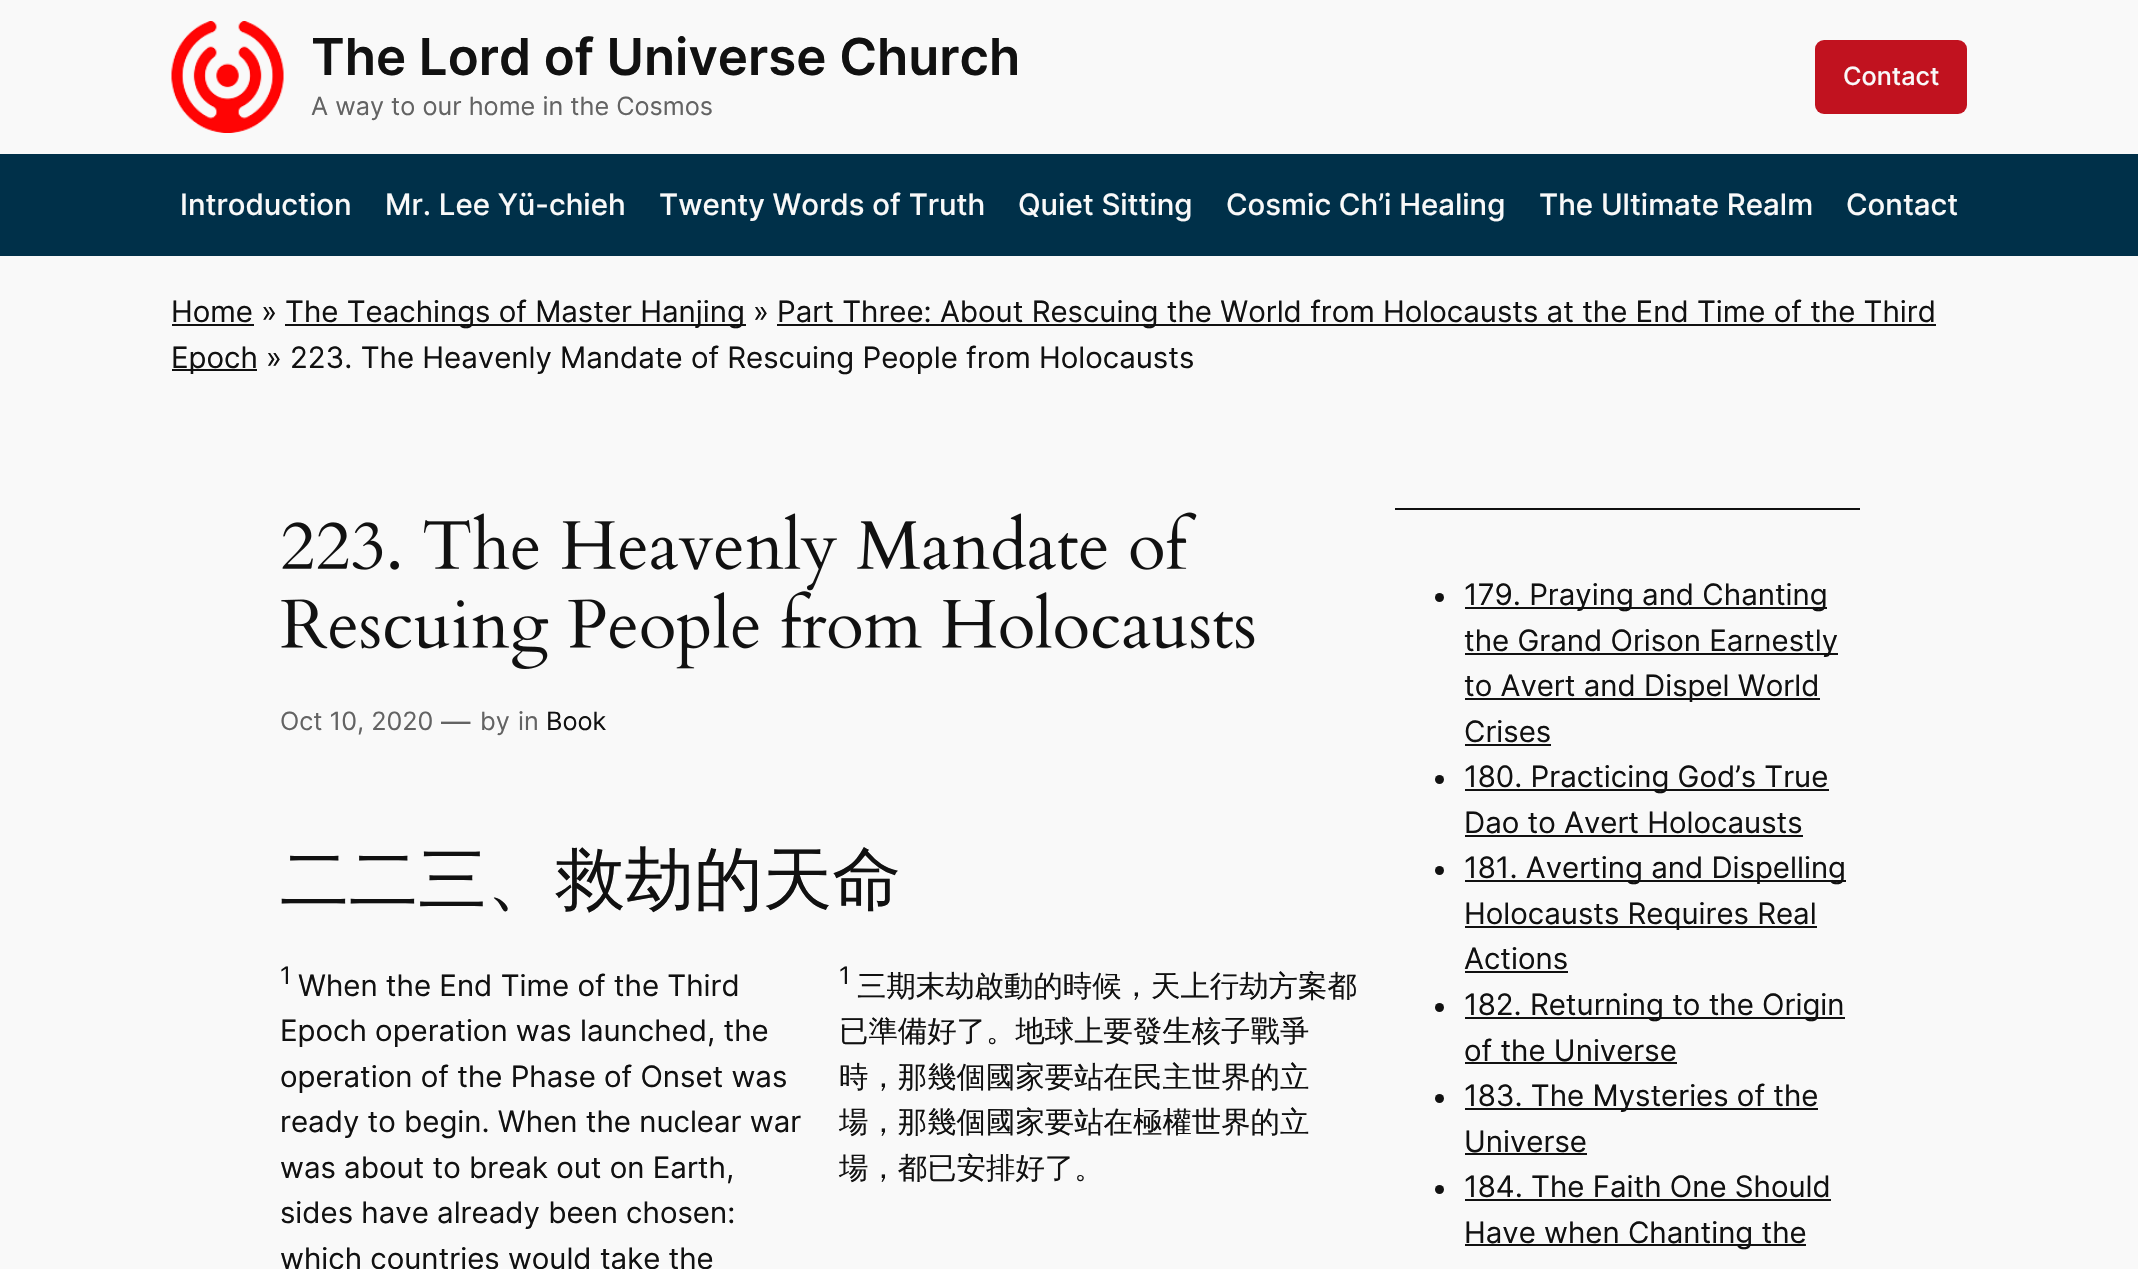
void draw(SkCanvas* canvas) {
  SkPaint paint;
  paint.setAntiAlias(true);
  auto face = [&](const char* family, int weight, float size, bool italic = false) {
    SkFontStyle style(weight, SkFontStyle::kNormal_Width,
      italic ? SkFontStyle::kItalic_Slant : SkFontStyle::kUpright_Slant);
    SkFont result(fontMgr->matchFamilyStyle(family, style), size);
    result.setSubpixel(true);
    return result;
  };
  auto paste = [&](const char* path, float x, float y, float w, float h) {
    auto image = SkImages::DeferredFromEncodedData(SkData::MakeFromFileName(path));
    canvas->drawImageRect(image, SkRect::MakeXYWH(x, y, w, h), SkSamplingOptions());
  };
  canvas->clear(0xfff9f9f9);
  paste("img/1.png", 171, 21, 113, 112);
  paint.setColor(0xffc1121f);
  canvas->drawRoundRect(SkRect::MakeXYWH(1815, 40, 152, 74), 9, 9, paint);
  {
    const struct { float x, y, w, h; SkColor color; } items[] = {
      {0, 154, 2138, 102, 0xff003049},
      {172, 324, 82, 2, 0xff111111},
      {285, 324, 461, 2, 0xff111111},
      {777, 324, 1159, 2, 0xff111111},
      {172, 369, 85, 2, 0xff111111},
    };
    for (auto [x, y, w, h, color] : items) {
      paint.setColor(color);
      canvas->drawRect(SkRect::MakeXYWH(x, y, w, h), paint);
    }
  }
  paste("img/2.png", 282, 512, 915, 79);
  paste("img/3.png", 281, 591, 974, 78);
  canvas->drawRect(SkRect::MakeXYWH(1395, 508, 465, 2), paint);
  canvas->drawCircle(1439.5f, 597.5f, 4.5f, paint);
  {
    const struct { float x, y, w, h; SkColor color; } items[] = {
      {1465, 607, 362, 2, 0xff111111},
      {1465, 653, 373, 2, 0xff111111},
      {1465, 698, 355, 2, 0xff111111},
      {1465, 744, 86, 2, 0xff111111},
    };
    for (auto [x, y, w, h, color] : items) {
      paint.setColor(color);
      canvas->drawRect(SkRect::MakeXYWH(x, y, w, h), paint);
    }
  }
  canvas->drawCircle(1439.5f, 779.5f, 4.5f, paint);
  canvas->drawRect(SkRect::MakeXYWH(1465, 789, 364, 2), paint);
  canvas->drawRect(SkRect::MakeXYWH(1465, 835, 338, 2), paint);
  canvas->drawCircle(1439.5f, 870.5f, 4.5f, paint);
  {
    const struct { float x, y, w, h; SkColor color; } items[] = {
      {1465, 880, 381, 2, 0xff111111},
      {1465, 926, 352, 2, 0xff111111},
      {1465, 971, 103, 2, 0xff111111},
    };
    for (auto [x, y, w, h, color] : items) {
      paint.setColor(color);
      canvas->drawRect(SkRect::MakeXYWH(x, y, w, h), paint);
    }
  }
  canvas->drawCircle(1439.5f, 1007.5f, 4.5f, paint);
  canvas->drawRect(SkRect::MakeXYWH(1465, 1017, 380, 2), paint);
  canvas->drawRect(SkRect::MakeXYWH(1465, 1062, 212, 2), paint);
  canvas->drawCircle(1439.5f, 1098.5f, 4.5f, paint);
  canvas->drawRect(SkRect::MakeXYWH(1465, 1108, 353, 2), paint);
  canvas->drawRect(SkRect::MakeXYWH(1465, 1153, 122, 2), paint);
  canvas->drawCircle(1439.5f, 1189.5f, 4.5f, paint);
  canvas->drawRect(SkRect::MakeXYWH(1465, 1199, 366, 2), paint);
  canvas->drawRect(SkRect::MakeXYWH(1465, 1244, 341, 2), paint);
  auto f0 = face("Inter", 600, 51);
  canvas->drawString("The Lord of Universe Church", 311, 75, f0, paint);
  auto f1 = face("Inter", 400, 25.25f);
  paint.setColor(0xff636363);
  canvas->drawString("A way to our home in the Cosmos", 311, 115, f1, paint);
  auto f2 = face("Inter", 500, 25.25f);
  paint.setColor(0xfff9f9f9);
  canvas->drawString("Contact", 1843, 85, f2, paint);
  auto f3 = face("Inter", 500, 29.4f);
  {
    const struct { const char* s; float x, y; } items[] = {
      {"Introduction", 180, 215},
      {"Mr. Lee Yü-chieh", 385, 215},
      {"Twenty Words of Truth", 659, 215},
      {"Quiet Sitting", 1018, 215},
      {"Cosmic Ch’i Healing", 1226, 215},
      {"The Ultimate Realm", 1539, 215},
      {"Contact", 1846, 215},
    };
    for (auto [s, x, y] : items) {
      canvas->drawString(s, x, y, f3, paint);
    }
  }
  auto f4 = face("Inter", 400, 29.4f);
  paint.setColor(0xff111111);
  {
    const struct { const char* s; float x, y; } items[] = {
      {"Home »", 171, 322},
      {"The Teachings of Master Hanjing", 285, 322},
      {"»", 753, 322},
      {"Part Three: About Rescuing the World from Holocausts at the End Time of the Third", 777, 322},
      {"Epoch »", 171, 368},
      {"223. The Heavenly Mandate of Rescuing People from Holocausts", 290, 368},
    };
    for (auto [s, x, y] : items) {
      canvas->drawString(s, x, y, f4, paint);
    }
  }
  paint.setColor(0xff636363);
  canvas->drawString("Oct 10, 2020", 280, 730, f1, paint);
  canvas->drawString("—", 441, 732, f4, paint);
  canvas->drawString("by", 480, 730, f1, paint);
  canvas->drawString("in", 518, 730, f1, paint);
  paint.setColor(0xff111111);
  canvas->drawString("Book", 546, 730, f1, paint);
  auto f5 = face("WenQuanYi Zen Hei", 500, 69);
  canvas->drawString("二二三、救劫的天命", 280, 903, f5, paint);
  auto f6 = face("Inter", 400, 24);
  canvas->drawString("1", 280, 984, f6, paint);
  {
    const struct { const char* s; float x, y; } items[] = {
      {"When the End Time of the Third", 298, 996},
      {"Epoch operation was launched, the", 280, 1041},
      {"operation of the Phase of Onset was", 280, 1087},
      {"ready to begin. When the nuclear war", 280, 1132},
      {"was about to break out on Earth,", 280, 1178},
      {"sides have already been chosen:", 280, 1223},
      {"which countries would take the", 280, 1269},
    };
    for (auto [s, x, y] : items) {
      canvas->drawString(s, x, y, f4, paint);
    }
  }
  canvas->drawString("1", 839, 984, f6, paint);
  auto f7 = face("WenQuanYi Zen Hei", 500, 29.4f);
  {
    const struct { const char* s; float x, y; } items[] = {
      {"三期末劫啟動的時候，天上行劫方案都", 857, 996},
      {"已準備好了。地球上要發生核子戰爭", 839, 1041},
      {"時，那幾個國家要站在民主世界的立", 839, 1087},
      {"場，那幾個國家要站在極權世界的立", 839, 1132},
      {"場，都已安排好了。", 839, 1178},
    };
    for (auto [s, x, y] : items) {
      canvas->drawString(s, x, y, f7, paint);
    }
  }
  {
    const struct { const char* s; float x, y; } items[] = {
      {"179. Praying and Chanting", 1464, 605},
      {"the Grand Orison Earnestly", 1464, 651},
      {"to Avert and Dispel World", 1464, 696},
      {"Crises", 1464, 742},
      {"180. Practicing God’s True", 1464, 787},
      {"Dao to Avert Holocausts", 1464, 833},
      {"181. Averting and Dispelling", 1464, 878},
      {"Holocausts Requires Real", 1464, 924},
      {"Actions", 1464, 969},
      {"182. Returning to the Origin", 1464, 1015},
      {"of the Universe", 1464, 1061},
      {"183. The Mysteries of the", 1464, 1106},
      {"Universe", 1464, 1152},
      {"184. The Faith One Should", 1464, 1197},
      {"Have when Chanting the", 1464, 1243},
    };
    for (auto [s, x, y] : items) {
      canvas->drawString(s, x, y, f4, paint);
    }
  }
}
